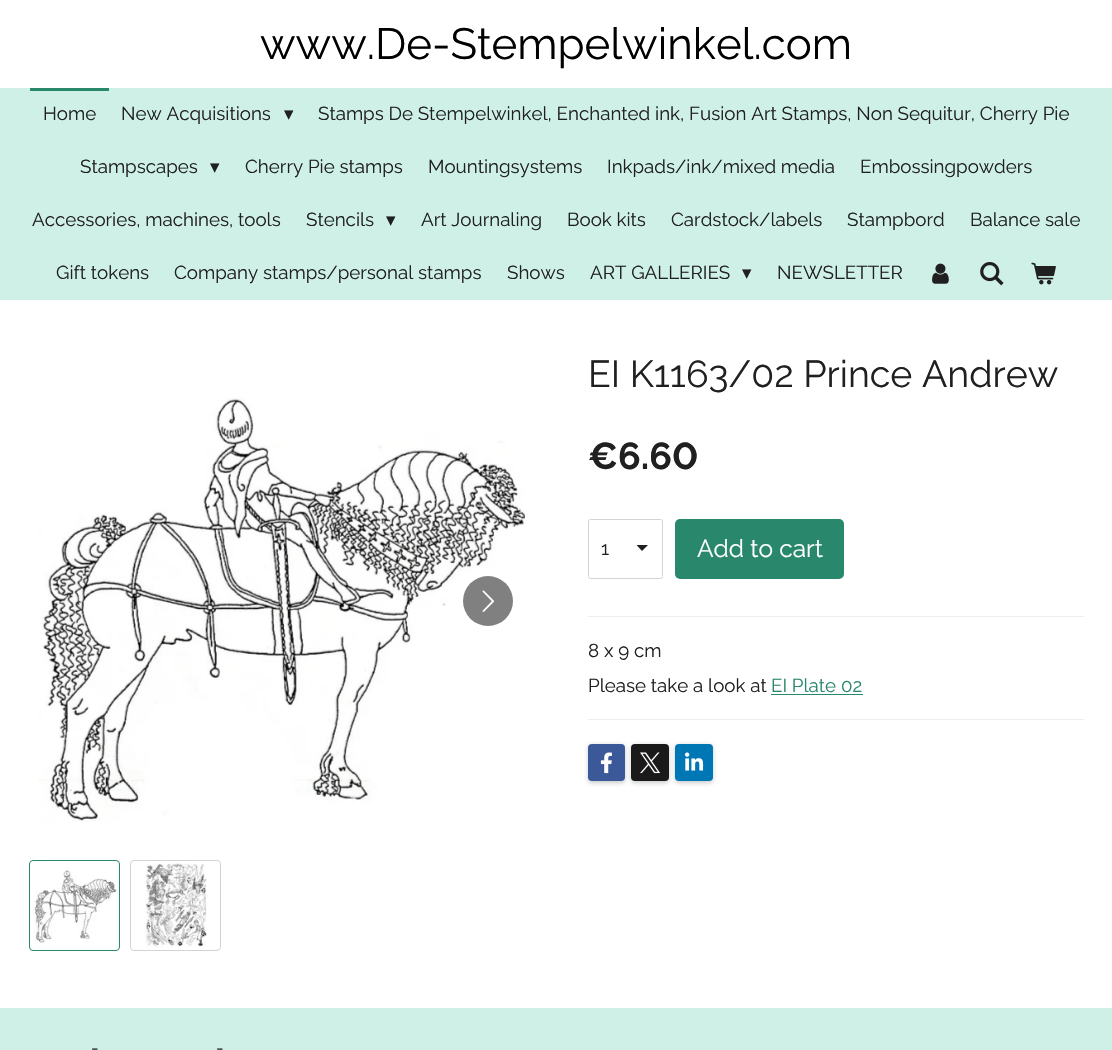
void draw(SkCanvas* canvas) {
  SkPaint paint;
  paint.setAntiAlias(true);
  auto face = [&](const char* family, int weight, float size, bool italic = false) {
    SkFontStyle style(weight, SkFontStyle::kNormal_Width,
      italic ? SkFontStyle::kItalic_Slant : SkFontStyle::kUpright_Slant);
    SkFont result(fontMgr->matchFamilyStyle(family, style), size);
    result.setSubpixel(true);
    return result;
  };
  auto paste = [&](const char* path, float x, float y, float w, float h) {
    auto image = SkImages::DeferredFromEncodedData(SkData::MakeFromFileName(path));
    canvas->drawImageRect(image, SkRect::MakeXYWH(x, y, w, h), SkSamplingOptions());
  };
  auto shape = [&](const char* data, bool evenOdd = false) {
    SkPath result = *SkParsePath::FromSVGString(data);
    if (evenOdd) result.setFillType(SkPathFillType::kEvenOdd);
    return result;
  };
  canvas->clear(0xffffffff);
  paint.setColor(0xffcef0e6);
  canvas->drawRect(SkRect::MakeXYWH(0, 88, 1112, 212), paint);
  paint.setColor(0xff29876b);
  canvas->drawRect(SkRect::MakeXYWH(30, 88, 79, 3), paint);
  paste("img/1.png", 932, 263, 17, 21);
  paste("img/2.png", 980, 262, 24, 24);
  paste("img/3.png", 1031, 262, 25, 23);
  paste("img/4.png", 38, 398, 487, 424);
  paint.setColor(0xff808080);
  canvas->drawCircle(488, 601, 25, paint);
  paste("img/5.png", 482, 590, 12, 22);
  paint.setStroke(true);
  paint.setStrokeWidth(1);
  paint.setColor(0xff29876b);
  canvas->drawRoundRect(SkRect::MakeXYWH(29.5f, 860.5f, 90, 90), 3.5f, 3.5f, paint);
  paste("img/6.png", 33, 870, 84, 73);
  paint.setColor(0xffd2d2d2);
  canvas->drawRoundRect(SkRect::MakeXYWH(130.5f, 860.5f, 90, 90), 3.5f, 3.5f, paint);
  paste("img/7.png", 145, 863, 62, 85);
  paint.setStroke(false);
  paint.setColor(0xff202020);
  canvas->drawPath(shape("M642 551L636.5 545H648Z"), paint);
  paint.setStroke(true);
  paint.setColor(0xffd3d3d3);
  canvas->drawRoundRect(SkRect::MakeXYWH(588.5f, 519.5f, 74, 59), 2, 2, paint);
  paint.setStroke(false);
  paint.setColor(0xff29876b);
  canvas->drawRoundRect(SkRect::MakeXYWH(675, 519, 169, 60), 5, 5, paint);
  {
    const struct { float x, y, w, h; SkColor color; } items[] = {
      {588, 616, 496, 1, 0xffefefef},
      {771, 694, 92, 1, 0xff29876b},
      {588, 719, 496, 1, 0xffefefef},
    };
    for (auto [x, y, w, h, color] : items) {
      paint.setColor(color);
      canvas->drawRect(SkRect::MakeXYWH(x, y, w, h), paint);
    }
  }
  paint.setColor(0x33000000);
  paint.setMaskFilter(SkMaskFilter::MakeBlur(kNormal_SkBlurStyle, 2));
  canvas->drawRoundRect(SkRect::MakeXYWH(588, 745, 37, 38), 4, 4, paint);
  paint.setMaskFilter(nullptr);
  paint.setColor(0xff3b5998);
  canvas->drawRoundRect(SkRect::MakeXYWH(588, 744, 37, 37), 4, 4, paint);
  paste("img/8.png", 600, 752, 12, 22);
  paint.setColor(0x33000000);
  paint.setMaskFilter(SkMaskFilter::MakeBlur(kNormal_SkBlurStyle, 2));
  canvas->drawRoundRect(SkRect::MakeXYWH(631, 745, 38, 38), 4, 4, paint);
  paint.setMaskFilter(nullptr);
  paint.setColor(0xff1a1a1a);
  canvas->drawRoundRect(SkRect::MakeXYWH(631, 744, 38, 37), 4, 4, paint);
  paste("img/9.png", 640, 752, 20, 22);
  paint.setColor(0x33000000);
  paint.setMaskFilter(SkMaskFilter::MakeBlur(kNormal_SkBlurStyle, 2));
  canvas->drawRoundRect(SkRect::MakeXYWH(675, 745, 38, 38), 4, 4, paint);
  paint.setMaskFilter(nullptr);
  paint.setColor(0xff0077b5);
  canvas->drawRoundRect(SkRect::MakeXYWH(675, 744, 38, 37), 4, 4, paint);
  paste("img/10.png", 685, 752, 19, 19);
  paint.setColor(0xffcef0e6);
  canvas->drawRect(SkRect::MakeXYWH(0, 1008, 1112, 42), paint);
  auto f0 = face("Raleway", 400, 43.75f);
  paint.setColor(0xff000000);
  canvas->drawString("www.De-Stempelwinkel.com", 260, 59, f0, paint);
  auto f1 = face("Raleway", 400, 18.75f);
  paint.setColor(0xff202020);
  canvas->drawString("Home", 43, 120, f1, paint);
  canvas->drawString("New Acquisitions", 121, 120, f1, paint);
  auto f2 = face("DejaVu Sans", 400, 18.75f);
  canvas->drawString("▾", 284, 120, f2, paint);
  canvas->drawString("Stamps De Stempelwinkel, Enchanted ink, Fusion Art Stamps, Non Sequitur, Cherry Pie", 318, 120, f1, paint);
  canvas->drawString("Stampscapes", 80, 173, f1, paint);
  canvas->drawString("▾", 210, 173, f2, paint);
  {
    const struct { const char* s; float x, y; } items[] = {
      {"Cherry Pie stamps", 245, 173},
      {"Mountingsystems", 428, 173},
      {"Inkpads/ink/mixed media", 607, 173},
      {"Embossingpowders", 860, 173},
      {"Accessories, machines, tools", 32, 226},
      {"Stencils", 306, 226},
    };
    for (auto [s, x, y] : items) {
      canvas->drawString(s, x, y, f1, paint);
    }
  }
  canvas->drawString("▾", 386, 226, f2, paint);
  {
    const struct { const char* s; float x, y; } items[] = {
      {"Art Journaling", 421, 226},
      {"Book kits", 567, 226},
      {"Cardstock/labels", 671, 226},
      {"Stampbord", 847, 226},
      {"Balance sale", 970, 226},
      {"Gift tokens", 56, 279},
      {"Company stamps/personal stamps", 174, 279},
      {"Shows", 507, 279},
      {"ART GALLERIES", 590, 279},
    };
    for (auto [s, x, y] : items) {
      canvas->drawString(s, x, y, f1, paint);
    }
  }
  canvas->drawString("▾", 742, 279, f2, paint);
  canvas->drawString("NEWSLETTER", 777, 279, f1, paint);
  auto f3 = face("Raleway", 400, 37.5f);
  canvas->drawString("EI K1163/02 Prince Andrew", 588, 387, f3, paint);
  auto f4 = face("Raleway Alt", 700, 37.5f);
  canvas->drawString("€6.60", 588, 469, f4, paint);
  canvas->drawString("1", 601, 555, f1, paint);
  auto f5 = face("Raleway", 400, 24.5f);
  paint.setColor(0xffffffff);
  canvas->drawString("Add to cart", 697, 557, f5, paint);
  paint.setColor(0xff202020);
  canvas->drawString("8 x 9 cm", 588, 657, f1, paint);
  canvas->drawString("Please take a look at", 588, 692, f1, paint);
  paint.setColor(0xff29876b);
  canvas->drawString("EI Plate 02", 771, 692, f1, paint);
  auto f6 = face("Raleway", 400, 18);
  paint.setColor(0xff202020);
  canvas->drawString("-", 91, 1054, f6, paint);
  canvas->drawString("-", 216, 1054, f6, paint);
}
